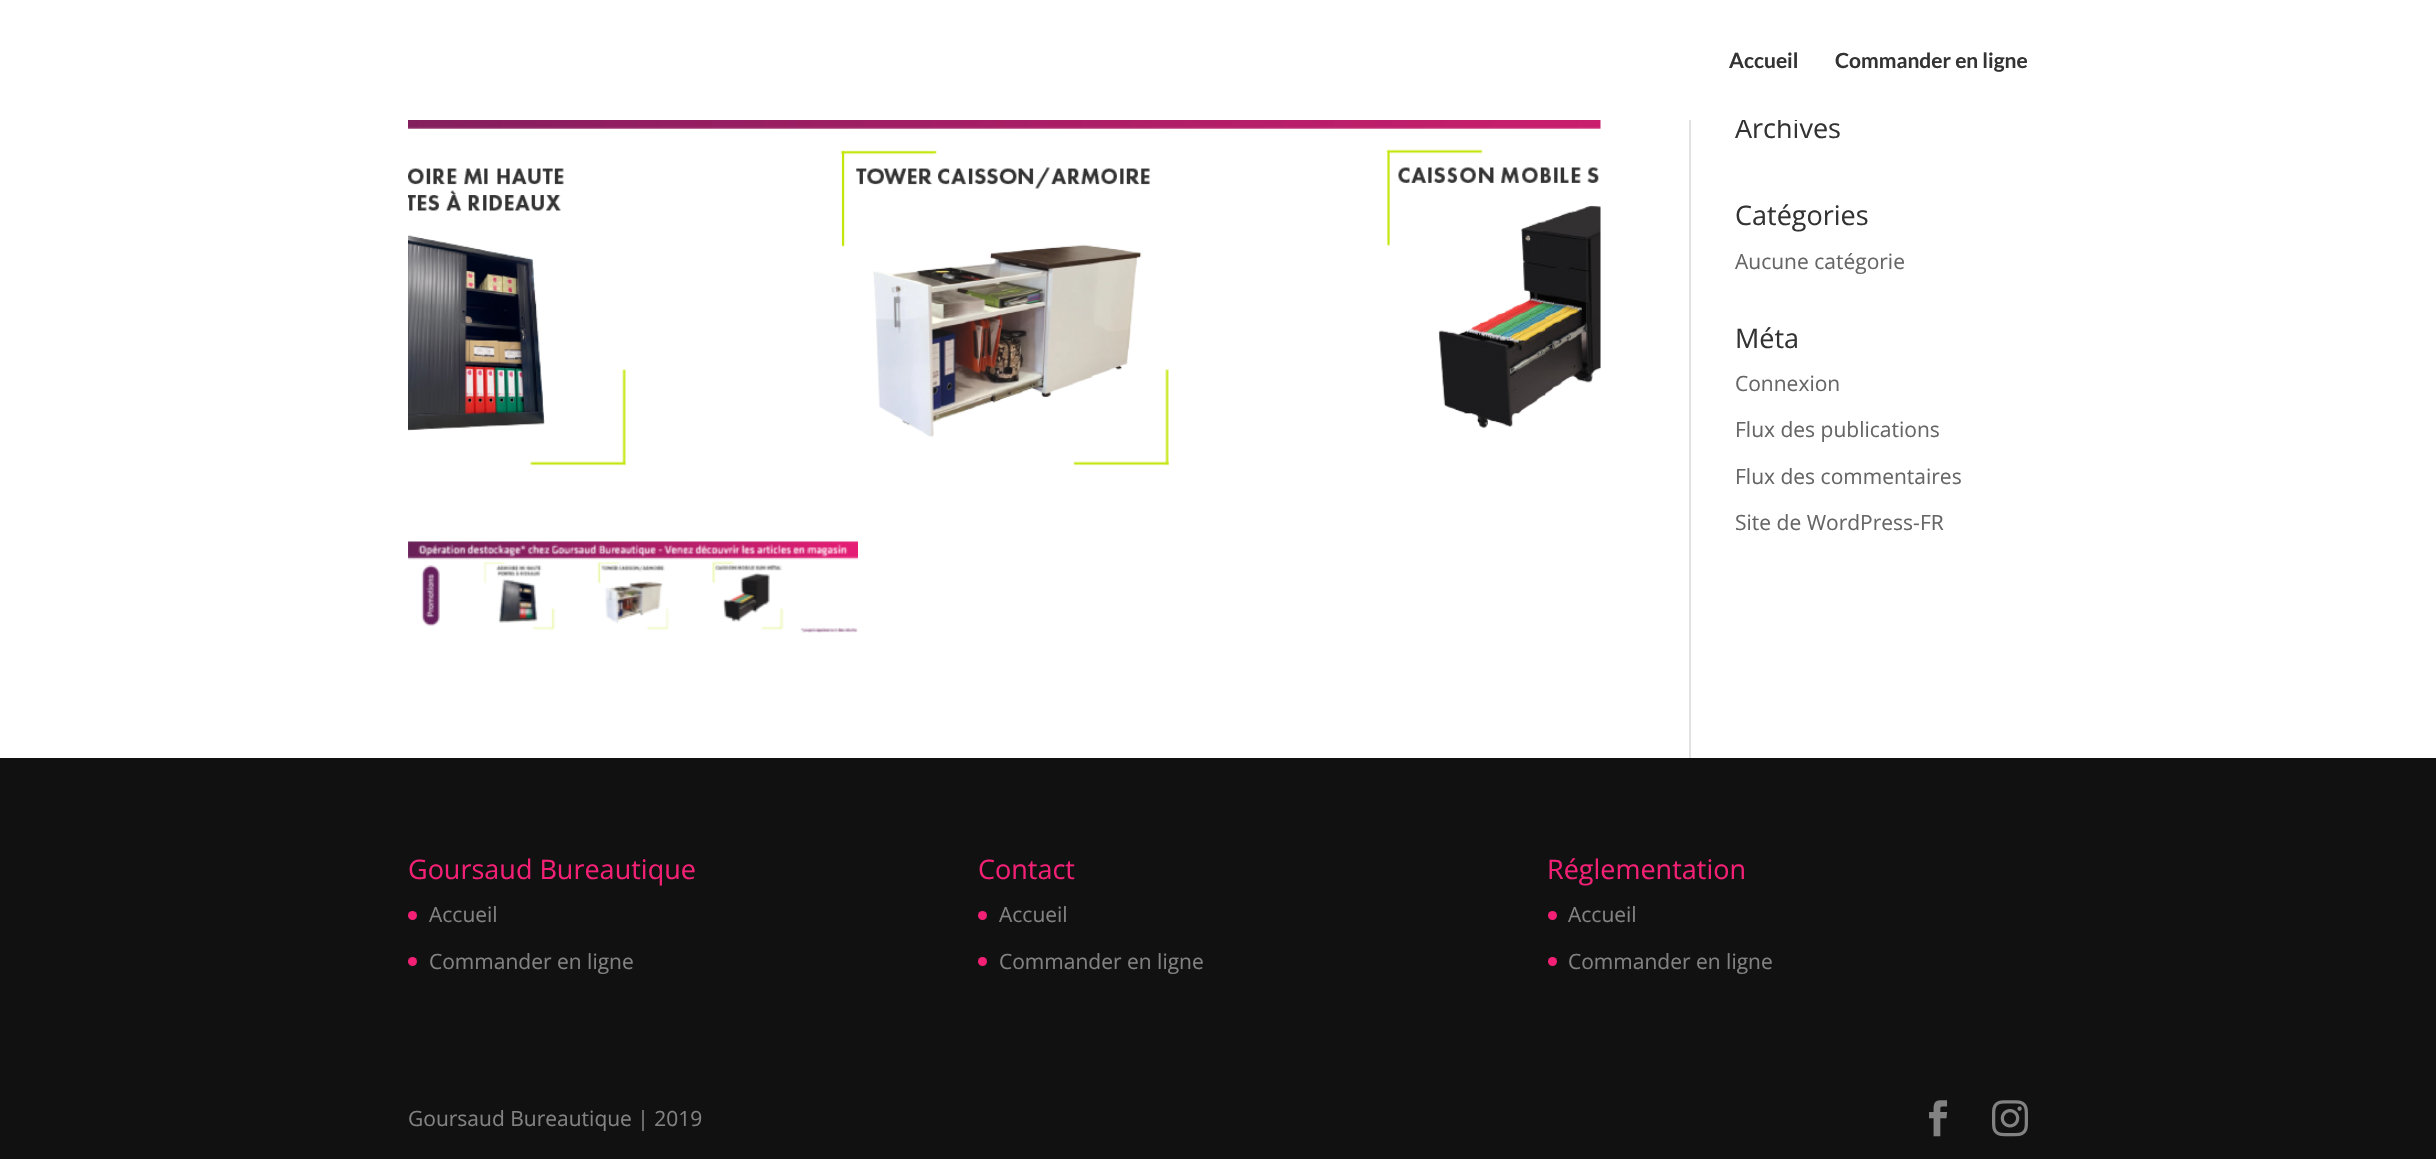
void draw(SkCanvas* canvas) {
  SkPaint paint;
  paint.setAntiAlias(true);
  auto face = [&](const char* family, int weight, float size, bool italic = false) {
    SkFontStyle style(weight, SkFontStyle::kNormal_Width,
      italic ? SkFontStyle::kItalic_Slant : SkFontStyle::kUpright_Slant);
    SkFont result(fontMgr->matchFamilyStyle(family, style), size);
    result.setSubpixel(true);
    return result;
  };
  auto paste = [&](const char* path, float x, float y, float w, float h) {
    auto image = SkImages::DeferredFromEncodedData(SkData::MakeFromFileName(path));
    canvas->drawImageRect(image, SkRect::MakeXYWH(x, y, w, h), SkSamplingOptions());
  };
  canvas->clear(0xffffffff);
  paint.setColor(0xffe2e2e2);
  canvas->drawRect(SkRect::MakeXYWH(1689, 120, 2, 638), paint);
  paste("img/1.png", 408, 120, 1193, 346);
  paste("img/2.png", 408, 541, 450, 92);
  paint.setColor(0xff111111);
  canvas->drawRect(SkRect::MakeXYWH(0, 758, 2436, 401), paint);
  paint.setColor(0xfff42075);
  canvas->drawCircle(412.5f, 915.5f, 4.5f, paint);
  canvas->drawCircle(412.5f, 961.5f, 4.5f, paint);
  canvas->drawCircle(982.5f, 915.5f, 4.5f, paint);
  canvas->drawCircle(982.5f, 961.5f, 4.5f, paint);
  canvas->drawCircle(1552.5f, 915.5f, 4.5f, paint);
  canvas->drawCircle(1552.5f, 961.5f, 4.5f, paint);
  paste("img/3.png", 1929, 1100, 19, 37);
  paste("img/4.png", 1992, 1100, 36, 37);
  auto f0 = face("Lato", 700, 21);
  paint.setColor(0xff333333);
  canvas->drawString("Accueil", 1729, 68, f0, paint);
  canvas->drawString("Commander en ligne", 1835, 68, f0, paint);
  auto f1 = face("Open Sans", 400, 27);
  canvas->drawString("Archives", 1735, 138, f1, paint);
  paint.setColor(0xffffffff);
  canvas->drawRect(SkRect::MakeXYWH(1741, 117, 57, 3), paint);
  paint.setColor(0xff333333);
  canvas->drawString("Catégories", 1735, 225, f1, paint);
  auto f2 = face("Open Sans", 400, 21);
  paint.setColor(0xff666666);
  canvas->drawString("Aucune catégorie", 1735, 269, f2, paint);
  paint.setColor(0xff333333);
  canvas->drawString("Méta", 1735, 348, f1, paint);
  paint.setColor(0xff666666);
  {
    const struct { const char* s; float x, y; } items[] = {
      {"Connexion", 1735, 391},
      {"Flux des publications", 1735, 437},
      {"Flux des commentaires", 1735, 484},
      {"Site de WordPress-FR", 1735, 530},
    };
    for (auto [s, x, y] : items) {
      canvas->drawString(s, x, y, f2, paint);
    }
  }
  paint.setColor(0xfff42075);
  canvas->drawString("Goursaud Bureautique", 408, 879, f1, paint);
  paint.setColor(0xff828282);
  canvas->drawString("Accueil", 429, 922, f2, paint);
  canvas->drawString("Commander en ligne", 429, 969, f2, paint);
  paint.setColor(0xfff42075);
  canvas->drawString("Contact", 978, 879, f1, paint);
  paint.setColor(0xff828282);
  canvas->drawString("Accueil", 999, 922, f2, paint);
  canvas->drawString("Commander en ligne", 999, 969, f2, paint);
  paint.setColor(0xfff42075);
  canvas->drawString("Réglementation", 1547, 879, f1, paint);
  paint.setColor(0xff828282);
  {
    const struct { const char* s; float x, y; } items[] = {
      {"Accueil", 1568, 922},
      {"Commander en ligne", 1568, 969},
      {"Goursaud Bureautique | 2019", 408, 1126},
    };
    for (auto [s, x, y] : items) {
      canvas->drawString(s, x, y, f2, paint);
    }
  }
}
